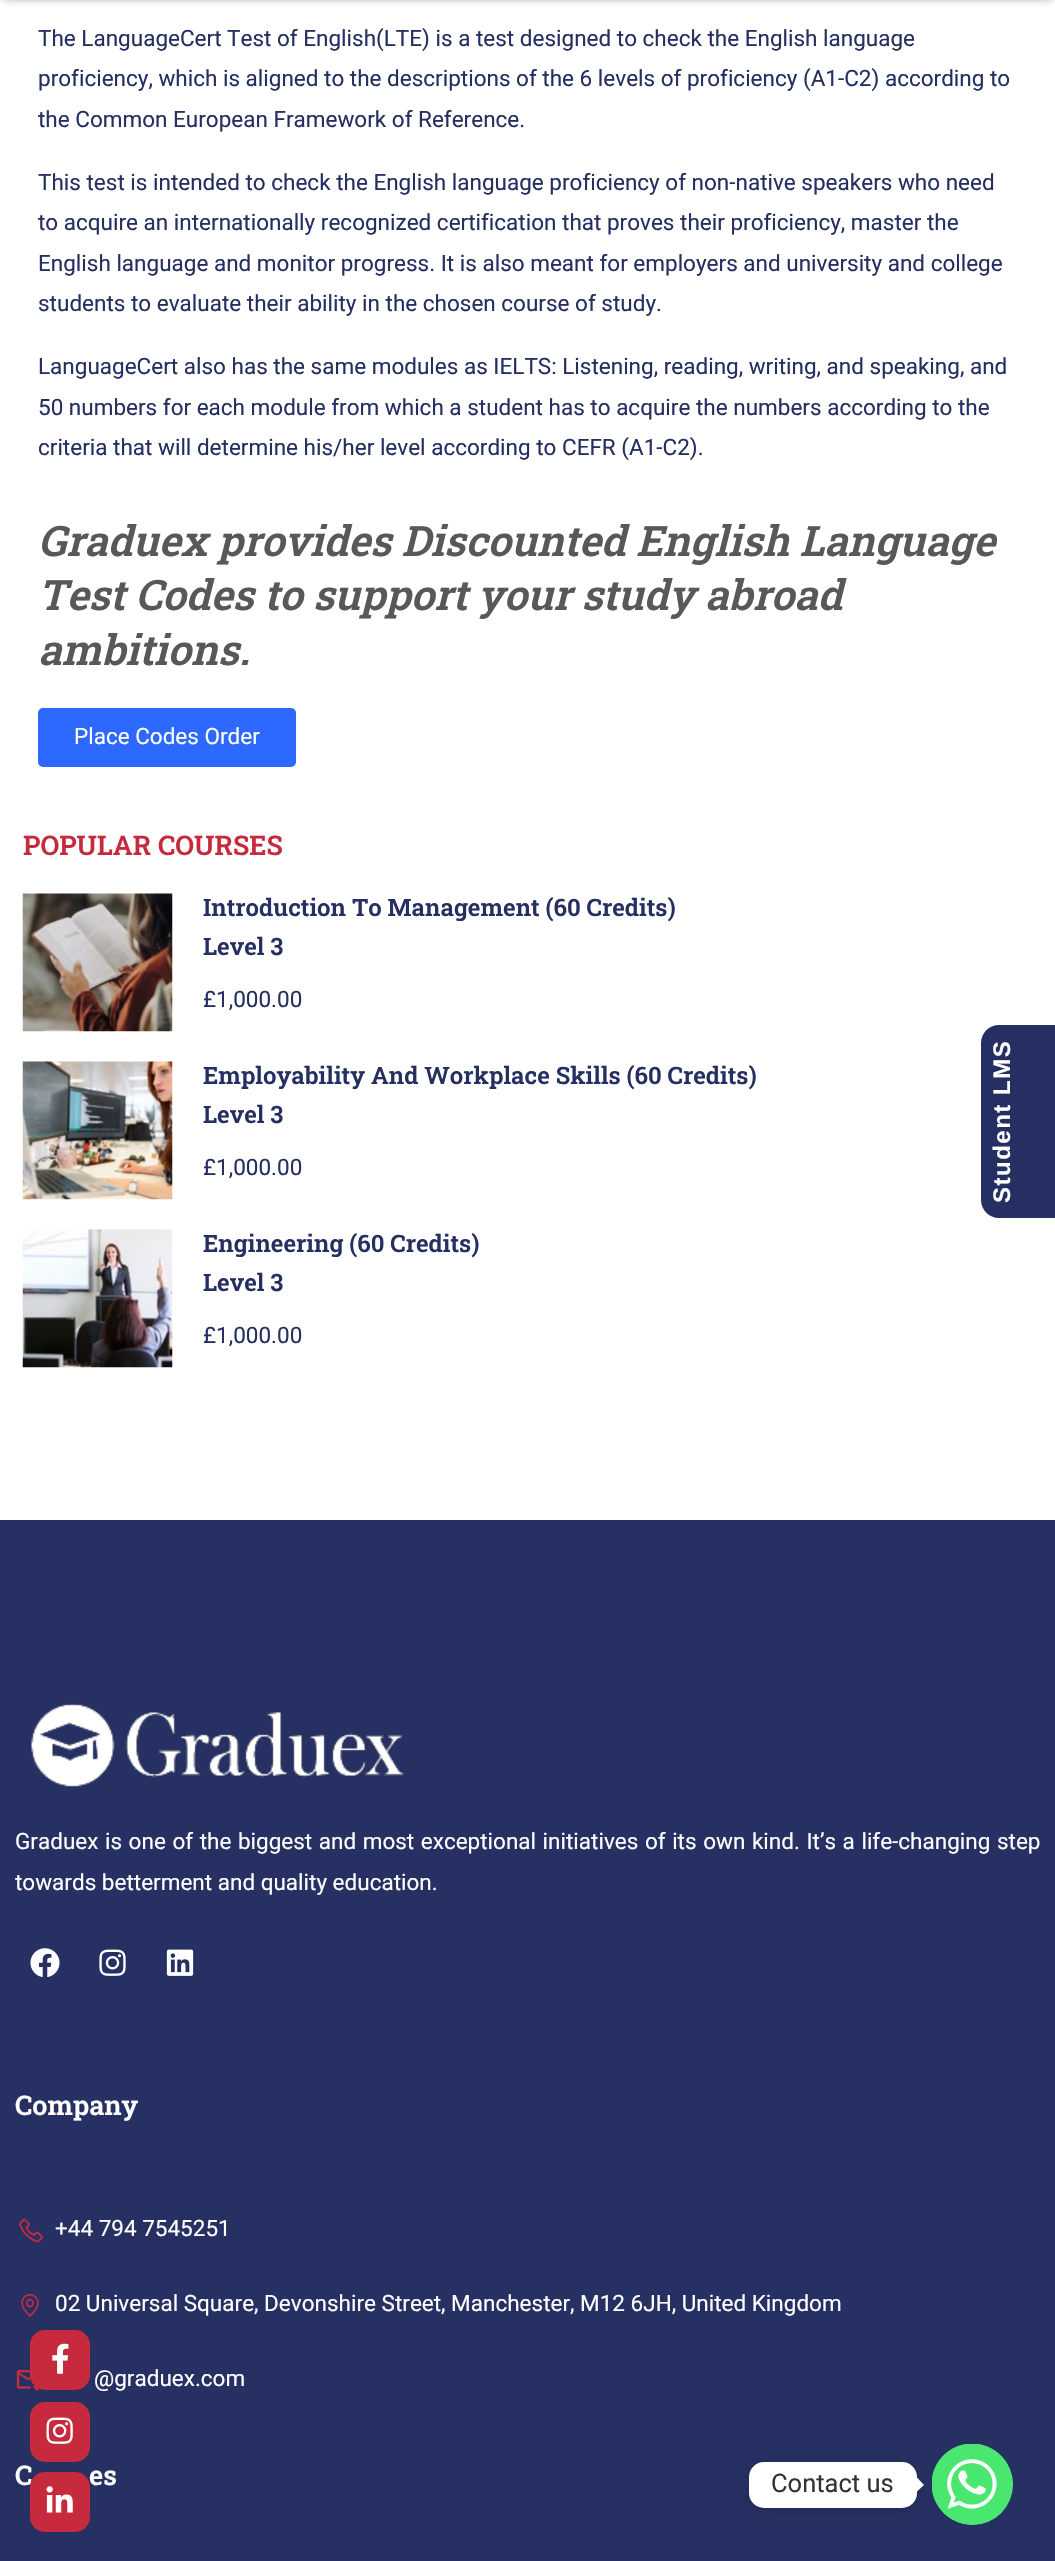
void draw(SkCanvas* canvas) {
  SkPaint paint;
  paint.setAntiAlias(true);
  auto face = [&](const char* family, int weight, float size, bool italic = false) {
    SkFontStyle style(weight, SkFontStyle::kNormal_Width,
      italic ? SkFontStyle::kItalic_Slant : SkFontStyle::kUpright_Slant);
    SkFont result(fontMgr->matchFamilyStyle(family, style), size);
    result.setSubpixel(true);
    return result;
  };
  auto writeSpaced = [&](const char* s, float x, float y, const SkFont& font, const SkPaint& ink, float letter, float word) {
    std::vector<SkGlyphID> glyphs(font.countText(s, strlen(s), SkTextEncoding::kUTF8));
    std::vector<float> xs(glyphs.size());
    font.textToGlyphs(s, strlen(s), SkTextEncoding::kUTF8, glyphs);
    font.getXPos(glyphs, xs, x);
    float extra = 0;
    for (size_t i = 0; i < glyphs.size(); i++) {
      xs[i] += extra;
      extra += letter + word * (glyphs[i] == font.unicharToGlyph(' '));
    }
    canvas->drawTextBlob(SkTextBlob::MakeFromPosHGlyphs(glyphs, xs, y, font), 0, 0, ink);
  };
  auto paste = [&](const char* path, float x, float y, float w, float h) {
    auto image = SkImages::DeferredFromEncodedData(SkData::MakeFromFileName(path));
    canvas->drawImageRect(image, SkRect::MakeXYWH(x, y, w, h), SkSamplingOptions());
  };
  auto shape = [&](const char* data, bool evenOdd = false) {
    SkPath result = *SkParsePath::FromSVGString(data);
    if (evenOdd) result.setFillType(SkPathFillType::kEvenOdd);
    return result;
  };
  canvas->clear(0xffffffff);
  paint.setColor(0x662a2a2a);
  paint.setMaskFilter(SkMaskFilter::MakeBlur(kNormal_SkBlurStyle, 4));
  canvas->drawRect(SkRect::MakeXYWH(3, -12, 1050, 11), paint);
  paint.setMaskFilter(nullptr);
  paint.setColor(0xff2e69ff);
  canvas->drawRoundRect(SkRect::MakeXYWH(38, 708, 258, 59), 5, 5, paint);
  paste("img/1.png", 22, 893, 151, 139);
  paste("img/2.png", 22, 1061, 151, 139);
  paste("img/3.png", 22, 1229, 151, 139);
  paint.setColor(0xff263062);
  canvas->drawRect(SkRect::MakeXYWH(0, 1520, 1055, 1041), paint);
  paint.setColor(0xff252f62);
  canvas->drawPath(shape("M999 1025H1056V1218H999C989 1218 981 1210 981 1200V1043C981 1033 989 1025 999 1025Z"), paint);
  paste("img/4.png", 31, 1703, 374, 85);
  paste("img/5.png", 30, 1948, 30, 30);
  paste("img/6.png", 99, 1949, 27, 27);
  paste("img/7.png", 166, 1949, 28, 27);
  paste("img/8.png", 19, 2218, 24, 25);
  paste("img/9.png", 21, 2293, 18, 24);
  paste("img/10.png", 16, 2370, 24, 21);
  paint.setColor(0xffc72a3d);
  canvas->drawRoundRect(SkRect::MakeXYWH(30, 2330, 60, 60), 15, 15, paint);
  paste("img/11.png", 52, 2343, 17, 31);
  canvas->drawRoundRect(SkRect::MakeXYWH(30, 2402, 60, 60), 15, 15, paint);
  paste("img/12.png", 46, 2417, 27, 27);
  paint.setColor(0xff49e670);
  canvas->drawCircle(972.5f, 2484.5f, 40.5f, paint);
  paste("img/14.png", 932, 2444, 81, 81);
  paint.setColor(0x26000000);
  paint.setMaskFilter(SkMaskFilter::MakeBlur(kNormal_SkBlurStyle, 6));
  canvas->drawRoundRect(SkRect::MakeXYWH(749, 2463, 168, 47), 15, 15, paint);
  paint.setMaskFilter(nullptr);
  paint.setColor(0xffffffff);
  canvas->drawRoundRect(SkRect::MakeXYWH(749, 2462, 168, 46), 15, 15, paint);
  canvas->drawPath(shape("M916.5 2492V2477L924 2485Z"), paint);
  auto f0 = face("Roboto", 400, 22.5f);
  paint.setColor(0xff252f62);
  {
    const struct { const char* s; float x, y; } items[] = {
      {"The LanguageCert Test of English(LTE) is a test designed to check the English language", 38, 46},
      {"proficiency, which is aligned to the descriptions of the 6 levels of proficiency (A1-C2) according to", 38, 86},
      {"the Common European Framework of Reference.", 38, 127},
      {"This test is intended to check the English language proficiency of non-native speakers who need", 38, 190},
      {"to acquire an internationally recognized certification that proves their proficiency, master the", 38, 230},
      {"English language and monitor progress. It is also meant for employers and university and college", 38, 271},
      {"students to evaluate their ability in the chosen course of study.", 38, 311},
      {"LanguageCert also has the same modules as IELTS: Listening, reading, writing, and speaking, and", 38, 374},
      {"50 numbers for each module from which a student has to acquire the numbers according to the", 38, 415},
      {"criteria that will determine his/her level according to CEFR (A1-C2).", 38, 455},
    };
    for (auto [s, x, y] : items) {
      canvas->drawString(s, x, y, f0, paint);
    }
  }
  auto f1 = face("Roboto Slab", 600, 42, true);
  paint.setColor(0xff585858);
  {
    const struct { const char* s; float x, y; } items[] = {
      {"Graduex provides Discounted English Language", 38, 556},
      {"Test Codes to support your study abroad", 38, 610},
      {"ambitions.", 38, 665},
    };
    for (auto [s, x, y] : items) {
      canvas->drawString(s, x, y, f1, paint);
    }
  }
  paint.setColor(0xffffffff);
  canvas->drawString("Place Codes Order", 74, 744, f0, paint);
  auto f2 = face("Roboto Slab", 600, 27);
  paint.setColor(0xffc72a3c);
  canvas->drawString("POPULAR COURSES", 23, 855, f2, paint);
  auto f3 = face("Roboto Slab", 600, 24);
  paint.setColor(0xff252f62);
  canvas->drawString("Introduction To Management (60 Credits)", 203, 916, f3, paint);
  canvas->drawString("Level 3", 203, 955, f3, paint);
  canvas->drawString("£1,000.00", 203, 1007, f0, paint);
  canvas->drawString("Employability And Workplace Skills (60 Credits)", 203, 1084, f3, paint);
  canvas->drawString("Level 3", 203, 1123, f3, paint);
  canvas->drawString("£1,000.00", 203, 1175, f0, paint);
  canvas->drawString("Engineering (60 Credits)", 203, 1252, f3, paint);
  canvas->drawString("Level 3", 203, 1291, f3, paint);
  canvas->drawString("£1,000.00", 203, 1343, f0, paint);
  auto f4 = face("Liberation Sans", 700, 24);
  paint.setColor(0xffffffff);
  canvas->save();
  canvas->rotate(-90, 1010, 1203);
  writeSpaced("Student LMS", 1010, 1203, f4, paint, 1.5f, 0);
  canvas->restore();
  writeSpaced("Graduex is one of the biggest and most exceptional initiatives of its own kind. It’s a life-changing step", 15, 1849, f0, paint, 0, 1);
  canvas->drawString("towards betterment and quality education.", 15, 1890, f0, paint);
  canvas->drawString("Company", 15, 2115, f2, paint);
  {
    const struct { const char* s; float x, y; } items[] = {
      {"+44 794 7545251", 55, 2236},
      {"02 Universal Square, Devonshire Street, Manchester, M12 6JH, United Kingdom", 55, 2311},
      {"@graduex.com", 94, 2386},
    };
    for (auto [s, x, y] : items) {
      canvas->drawString(s, x, y, f0, paint);
    }
  }
  canvas->drawString("C", 15, 2485, f2, paint);
  canvas->drawString("es", 89, 2485, f2, paint);
  paint.setColor(0xffc72a3d);
  canvas->drawRoundRect(SkRect::MakeXYWH(30, 2472, 60, 60), 15, 15, paint);
  paste("img/13.png", 46, 2486, 27, 27);
  auto f5 = face("Roboto", 400, 25.5f);
  paint.setColor(0xff333333);
  canvas->drawString("Contact us", 771, 2492, f5, paint);
}
